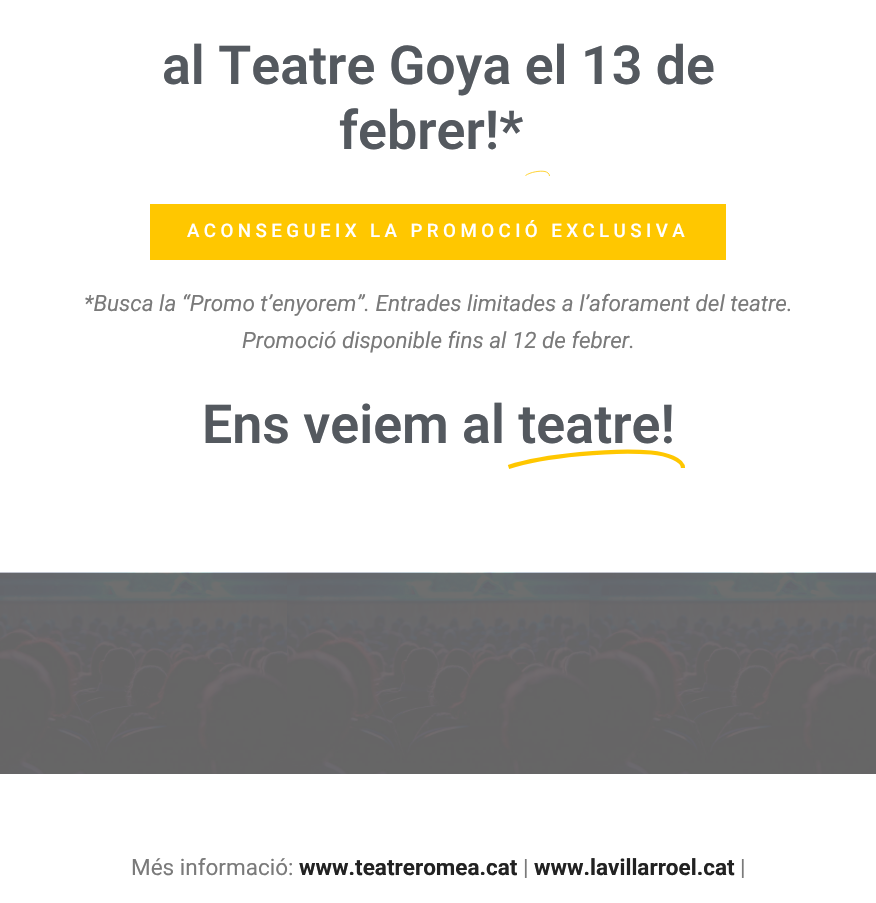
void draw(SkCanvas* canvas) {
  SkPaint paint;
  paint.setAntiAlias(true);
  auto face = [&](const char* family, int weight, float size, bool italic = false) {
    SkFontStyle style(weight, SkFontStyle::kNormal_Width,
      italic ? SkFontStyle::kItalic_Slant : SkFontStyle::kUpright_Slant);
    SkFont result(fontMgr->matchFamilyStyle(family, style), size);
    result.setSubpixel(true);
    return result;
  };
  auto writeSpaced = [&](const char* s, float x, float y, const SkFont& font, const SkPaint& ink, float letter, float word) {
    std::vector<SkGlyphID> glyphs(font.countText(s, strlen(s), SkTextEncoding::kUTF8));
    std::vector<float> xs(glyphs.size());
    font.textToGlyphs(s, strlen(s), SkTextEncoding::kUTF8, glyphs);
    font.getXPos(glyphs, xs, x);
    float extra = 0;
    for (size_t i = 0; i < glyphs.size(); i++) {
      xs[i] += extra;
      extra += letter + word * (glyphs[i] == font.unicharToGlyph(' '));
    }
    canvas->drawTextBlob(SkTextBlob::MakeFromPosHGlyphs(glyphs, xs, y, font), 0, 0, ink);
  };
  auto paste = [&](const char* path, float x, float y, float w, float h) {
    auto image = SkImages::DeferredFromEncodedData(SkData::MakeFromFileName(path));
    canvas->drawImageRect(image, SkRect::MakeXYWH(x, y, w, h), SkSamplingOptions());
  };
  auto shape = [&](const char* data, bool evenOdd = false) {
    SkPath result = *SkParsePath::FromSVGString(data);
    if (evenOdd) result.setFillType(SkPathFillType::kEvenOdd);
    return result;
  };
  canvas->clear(0xffffffff);
  paint.setStroke(true);
  paint.setStrokeWidth(0.8f);
  paint.setColor(0xffffc700);
  canvas->drawPath(shape("M525.5 175.5C530.5 172 540 170.5 545 171.5C547 172 549.5 173.5 549.5 176"), paint);
  paint.setStroke(false);
  canvas->drawRect(SkRect::MakeXYWH(150, 204, 576, 56), paint);
  paint.setStroke(true);
  paint.setStrokeWidth(4.2f);
  canvas->drawPath(shape("M508.5 467C545 455 614.5 449.5 651 452.5C666.5 454 683 459.5 683 468"), paint);
  paste("img/1.png", 0, 572, 876, 202);
  auto f0 = face("Roboto", 600, 53.75f);
  paint.setStroke(false);
  paint.setColor(0xff54595f);
  canvas->drawString("al Teatre Goya el 13 de", 162, 84, f0, paint);
  canvas->drawString("febrer!*", 339, 149, f0, paint);
  auto f1 = face("Roboto", 500, 18.75f);
  paint.setColor(0xffffffff);
  writeSpaced("ACONSEGUEIX LA PROMOCIÓ EXCLUSIVA", 187, 237, f1, paint, 4.4f, 0);
  auto f2 = face("Roboto", 400, 22.5f, true);
  paint.setColor(0xff7a7a7a);
  canvas->drawString("*Busca la “Promo t’enyorem”. Entrades limitades a l’aforament del teatre.", 84, 311, f2, paint);
  canvas->drawString("Promoció disponible fins al 12 de febrer.", 242, 348, f2, paint);
  paint.setColor(0xff54595f);
  canvas->drawString("Ens veiem al teatre!", 202, 443, f0, paint);
  auto f3 = face("Roboto", 400, 22.5f);
  paint.setColor(0xff7a7a7a);
  canvas->drawString("Més informació:", 131, 875, f3, paint);
  auto f4 = face("Roboto", 700, 22.5f);
  paint.setColor(0xff222222);
  canvas->drawString("www.teatreromea.cat", 299, 875, f4, paint);
  paint.setColor(0xff7a7a7a);
  canvas->drawString("|", 523, 875, f3, paint);
  paint.setColor(0xff222222);
  canvas->drawString("www.lavillarroel.cat", 534, 875, f4, paint);
  paint.setColor(0xff7a7a7a);
  canvas->drawString("|", 740, 875, f3, paint);
}
